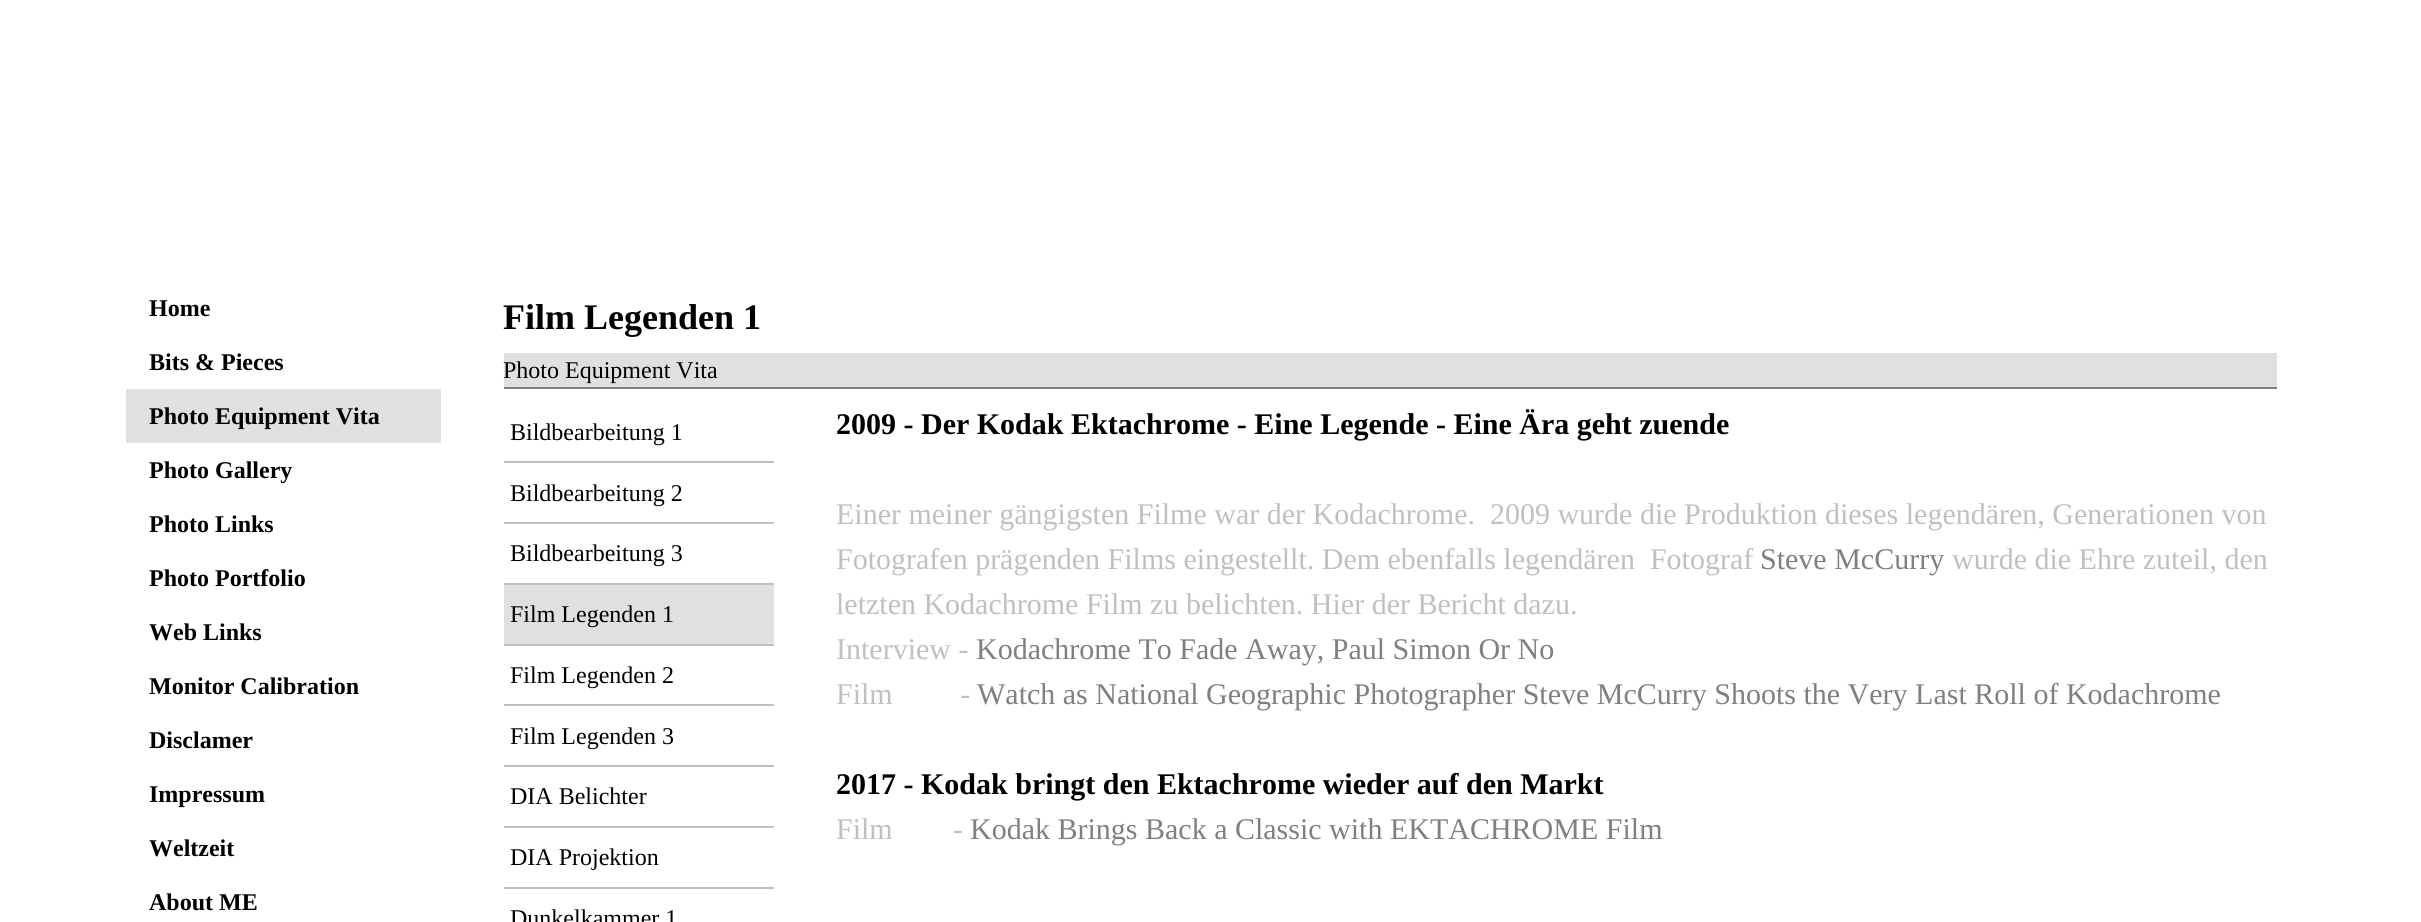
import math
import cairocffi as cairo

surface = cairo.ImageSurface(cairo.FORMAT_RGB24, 2421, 922)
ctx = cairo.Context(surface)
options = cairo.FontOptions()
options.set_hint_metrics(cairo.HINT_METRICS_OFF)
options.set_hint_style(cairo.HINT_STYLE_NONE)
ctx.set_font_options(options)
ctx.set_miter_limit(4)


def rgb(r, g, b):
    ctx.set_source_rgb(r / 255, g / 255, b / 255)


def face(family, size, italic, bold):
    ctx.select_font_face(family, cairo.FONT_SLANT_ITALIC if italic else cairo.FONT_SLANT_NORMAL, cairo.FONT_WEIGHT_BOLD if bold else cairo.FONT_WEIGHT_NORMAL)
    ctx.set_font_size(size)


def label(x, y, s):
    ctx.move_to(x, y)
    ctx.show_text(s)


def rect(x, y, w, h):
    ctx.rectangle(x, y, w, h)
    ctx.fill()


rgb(255, 255, 255)
ctx.paint()
face('Liberation Serif', 24, 0, 1)
rgb(0, 0, 0)
label(149, 316, 'Home')
label(149, 370, 'Bits & Pieces')
rgb(224, 224, 224)
rect(126, 389, 315, 54)
rgb(0, 0, 0)
label(149, 424, 'Photo Equipment Vita')
label(149, 478, 'Photo Gallery')
label(149, 532, 'Photo Links')
label(149, 586, 'Photo Portfolio')
label(149, 640, 'Web Links')
label(149, 694, 'Monitor Calibration')
label(149, 748, 'Disclamer')
label(149, 802, 'Impressum')
label(149, 856, 'Weltzeit')
label(149, 910, 'About ME')
face('Liberation Serif', 36, 0, 1)
label(503, 329, 'Film Legenden 1')
rgb(224, 224, 224)
rect(504, 353, 1773, 34)
rgb(128, 128, 128)
rect(504, 387, 1773, 2)
face('Liberation Serif', 24, 0, 0)
rgb(0, 0, 0)
label(503, 378, 'Photo Equipment Vita')
rgb(192, 192, 192)
rect(504, 461, 270, 2)
rgb(0, 0, 0)
label(510, 440, 'Bildbearbeitung 1')
rgb(192, 192, 192)
rect(504, 522, 270, 2)
rgb(0, 0, 0)
label(510, 501, 'Bildbearbeitung 2')
rgb(192, 192, 192)
rect(504, 583, 270, 2)
rgb(0, 0, 0)
label(510, 561, 'Bildbearbeitung 3')
rgb(224, 224, 224)
rect(504, 585, 270, 59)
rgb(192, 192, 192)
rect(504, 644, 270, 2)
rgb(0, 0, 0)
label(510, 622, 'Film Legenden 1')
rgb(192, 192, 192)
rect(504, 704, 270, 2)
rgb(0, 0, 0)
label(510, 683, 'Film Legenden 2')
rgb(192, 192, 192)
rect(504, 765, 270, 2)
rgb(0, 0, 0)
label(510, 744, 'Film Legenden 3')
rgb(192, 192, 192)
rect(504, 826, 270, 2)
rgb(0, 0, 0)
label(510, 804, 'DIA Belichter')
rgb(192, 192, 192)
rect(504, 887, 270, 2)
rgb(0, 0, 0)
label(510, 865, 'DIA Projektion')
label(510, 926, 'Dunkelkammer 1')
face('Liberation Serif', 30, 0, 1)
label(836, 434, '2009 - Der Kodak Ektachrome - Eine Legende - Eine Ära geht zuende')
face('Liberation Serif', 30, 0, 0)
rgb(192, 192, 192)
label(836, 524, 'Einer meiner gängigsten Filme war der Kodachrome.  2009 wurde die Produktion dieses legendären, Generationen von')
label(836, 569, 'Fotografen prägenden Films eingestellt. Dem ebenfalls legendären  Fotograf')
rgb(128, 128, 128)
label(1760, 569, 'Steve McCurry')
rgb(192, 192, 192)
label(1952, 569, 'wurde die Ehre zuteil, den')
label(836, 614, 'letzten Kodachrome Film zu belichten. Hier der Bericht dazu.')
label(836, 659, 'Interview -')
rgb(128, 128, 128)
label(976, 659, 'Kodachrome To Fade Away, Paul Simon Or No')
rgb(192, 192, 192)
label(836, 704, 'Film         -')
rgb(128, 128, 128)
label(977, 704, 'Watch as National Geographic Photographer Steve McCurry Shoots the Very Last Roll of Kodachrome')
face('Liberation Serif', 30, 0, 1)
rgb(0, 0, 0)
label(836, 794, '2017 - Kodak bringt den Ektachrome wieder auf den Markt')
face('Liberation Serif', 30, 0, 0)
rgb(192, 192, 192)
label(836, 839, 'Film        -')
rgb(128, 128, 128)
label(970, 839, 'Kodak Brings Back a Classic with EKTACHROME Film')
surface.write_to_png('render.png')
